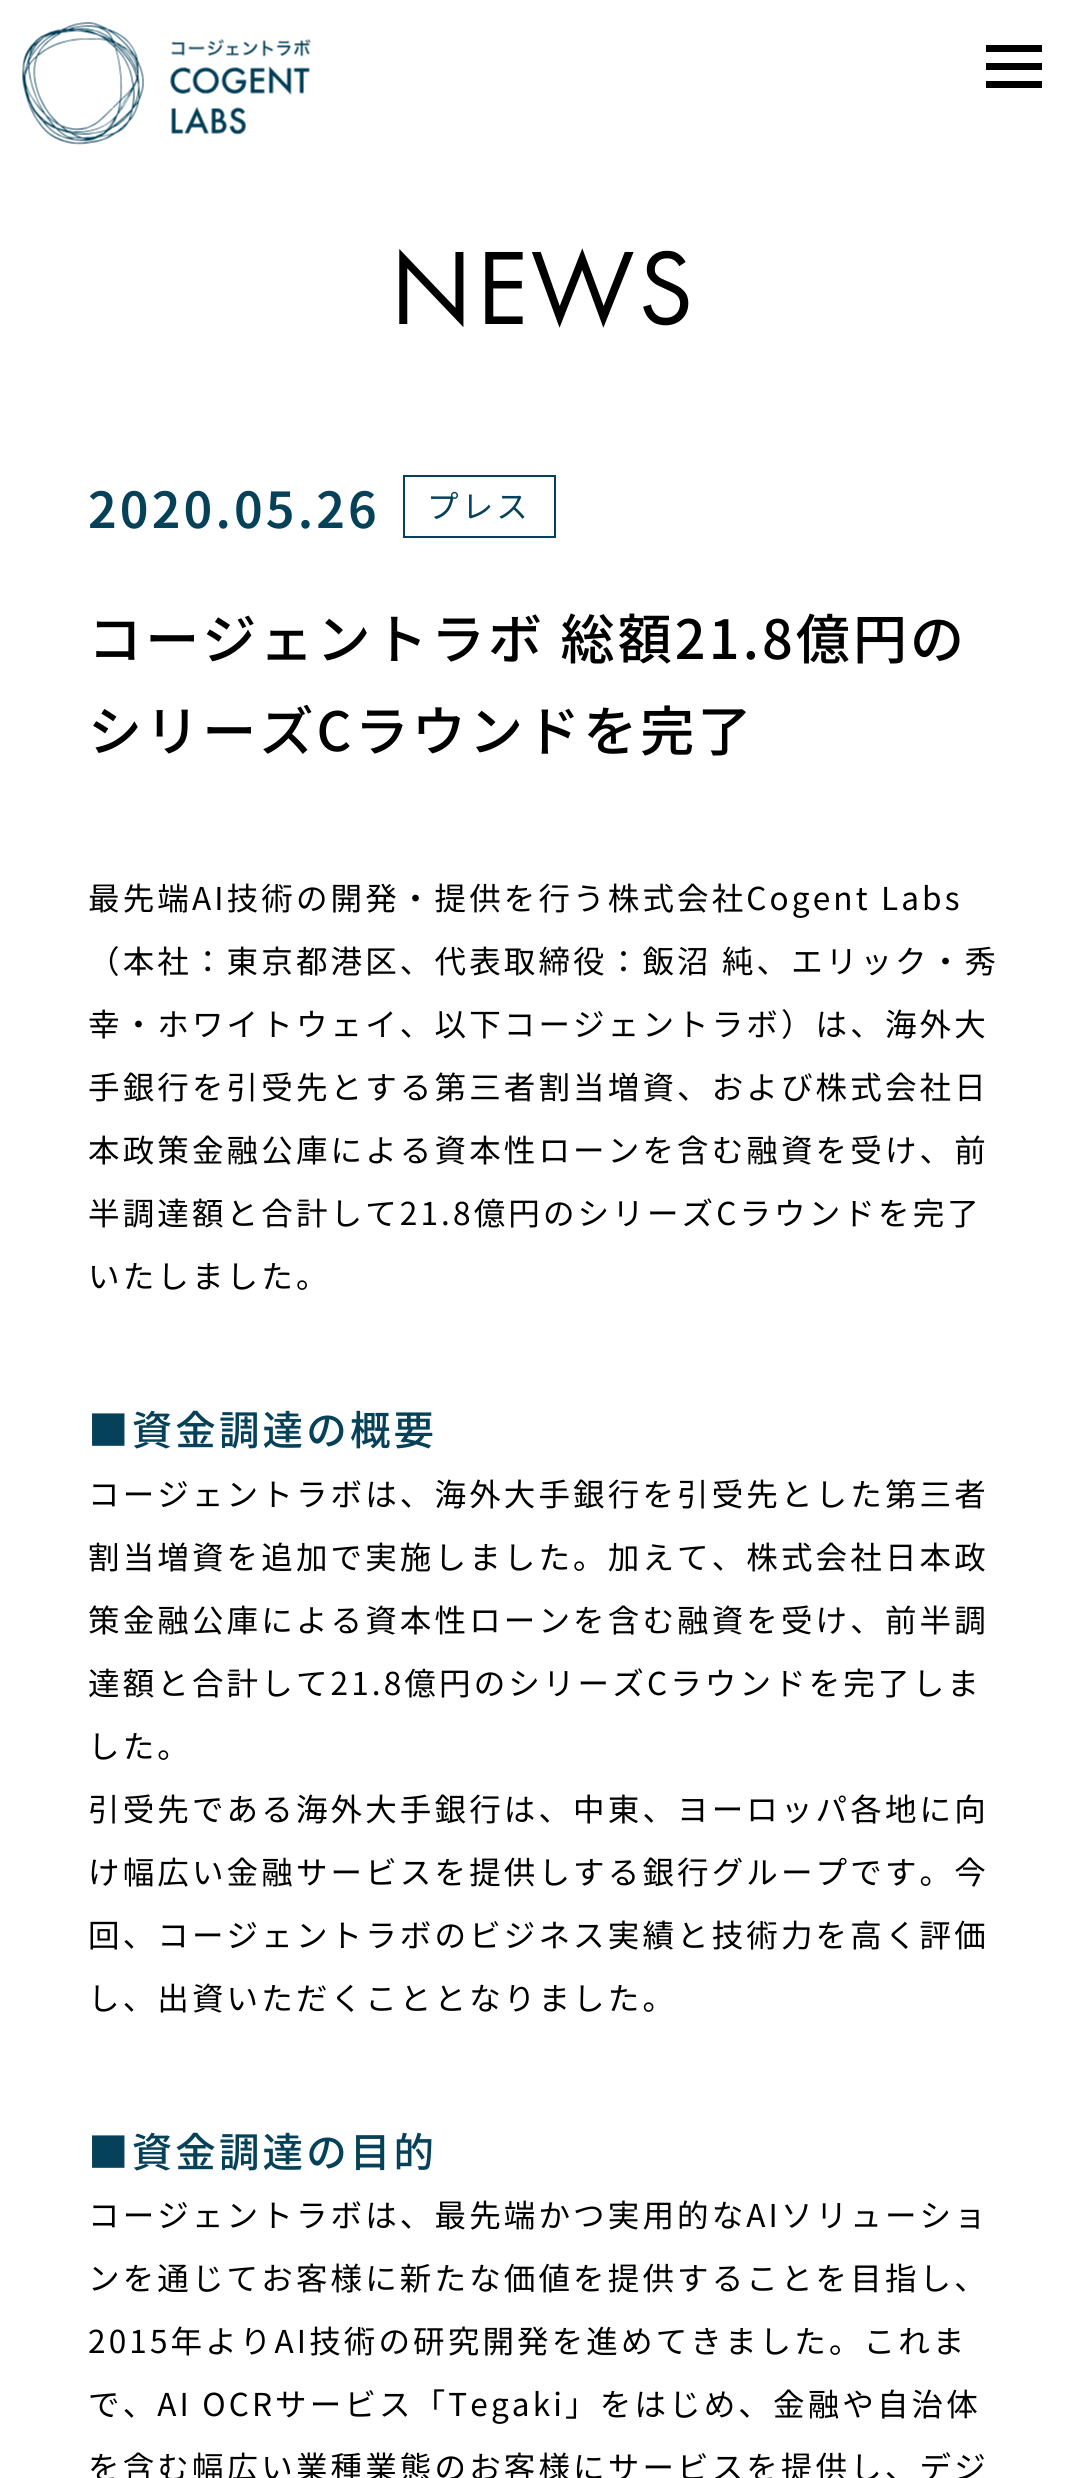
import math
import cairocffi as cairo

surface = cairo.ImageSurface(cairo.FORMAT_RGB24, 1085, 2478)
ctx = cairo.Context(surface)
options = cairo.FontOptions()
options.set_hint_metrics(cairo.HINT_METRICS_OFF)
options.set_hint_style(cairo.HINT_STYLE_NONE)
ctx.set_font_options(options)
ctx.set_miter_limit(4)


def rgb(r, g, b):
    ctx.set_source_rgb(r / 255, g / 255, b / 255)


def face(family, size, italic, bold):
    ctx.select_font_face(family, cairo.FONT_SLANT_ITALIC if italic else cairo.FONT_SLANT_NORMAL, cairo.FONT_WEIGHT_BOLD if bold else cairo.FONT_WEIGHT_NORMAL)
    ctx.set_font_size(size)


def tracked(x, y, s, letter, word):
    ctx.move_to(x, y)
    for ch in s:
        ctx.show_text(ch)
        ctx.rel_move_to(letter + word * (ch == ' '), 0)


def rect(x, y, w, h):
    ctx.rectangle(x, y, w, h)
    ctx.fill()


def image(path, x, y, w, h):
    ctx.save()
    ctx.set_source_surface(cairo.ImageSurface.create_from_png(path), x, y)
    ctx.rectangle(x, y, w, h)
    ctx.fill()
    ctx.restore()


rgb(255, 255, 255)
ctx.paint()
image('image0.png', 22, 22, 289, 123)
rgb(0, 0, 0)
rect(986, 45, 56, 7)
rect(986, 63, 56, 7)
rect(986, 81, 56, 7)
face('Futura PT', 108, 0, 0)
tracked(390, 324, 'NEWS', 3.15, 0)
face('Noto Sans JP SemiBold', 49.5, 0, 0)
rgb(5, 65, 89)
tracked(88, 528, '2020.05.26', 3.15, 0)
ctx.rectangle(404, 476, 151, 61)
ctx.stroke()
face('Noto Sans JP', 31.5, 0, 0)
tracked(427, 518, 'プレス', 3.15, 0)
face('Noto Sans JP Medium', 54, 0, 0)
rgb(0, 0, 0)
tracked(88, 659, 'コージェントラボ 総額21.8億円の', 3.15, 0)
tracked(88, 751, 'シリーズCラウンドを完了', 3.15, 0)
face('Noto Sans JP', 31.5, 0, 0)
tracked(88, 910, '最先端AI技術の開発・提供を行う株式会社Cogent Labs', 3.15, 0)
tracked(88, 973, '（本社：東京都港区、代表取締役：飯沼 純、エリック・秀', 3.15, 0)
tracked(88, 1036, '幸・ホワイトウェイ、以下コージェントラボ）は、海外大', 3.15, 0)
tracked(88, 1099, '手銀行を引受先とする第三者割当増資、および株式会社日', 3.15, 0)
tracked(88, 1162, '本政策金融公庫による資本性ローンを含む融資を受け、前', 3.15, 0)
tracked(88, 1225, '半調達額と合計して21.8億円のシリーズCラウンドを完了', 3.15, 0)
tracked(88, 1288, 'いたしました。', 3.15, 0)
face('Noto Sans JP Medium', 40.5, 0, 0)
rgb(5, 65, 89)
tracked(88, 1445, '■資金調達の概要', 3.15, 0)
face('Noto Sans JP', 31.5, 0, 0)
rgb(0, 0, 0)
tracked(88, 1506, 'コージェントラボは、海外大手銀行を引受先とした第三者', 3.15, 0)
tracked(88, 1569, '割当増資を追加で実施しました。加えて、株式会社日本政', 3.15, 0)
tracked(88, 1632, '策金融公庫による資本性ローンを含む融資を受け、前半調', 3.15, 0)
tracked(88, 1695, '達額と合計して21.8億円のシリーズCラウンドを完了しま', 3.15, 0)
tracked(88, 1758, 'した。', 3.15, 0)
tracked(88, 1821, '引受先である海外大手銀行は、中東、ヨーロッパ各地に向', 3.15, 0)
tracked(88, 1884, 'け幅広い金融サービスを提供しする銀行グループです。今', 3.15, 0)
tracked(88, 1947, '回、コージェントラボのビジネス実績と技術力を高く評価', 3.15, 0)
tracked(88, 2010, 'し、出資いただくこととなりました。', 3.15, 0)
face('Noto Sans JP Medium', 40.5, 0, 0)
rgb(5, 65, 89)
tracked(88, 2167, '■資金調達の目的', 3.15, 0)
face('Noto Sans JP', 31.5, 0, 0)
rgb(0, 0, 0)
tracked(88, 2227, 'コージェントラボは、最先端かつ実用的なAIソリューショ', 3.15, 0)
tracked(88, 2290, 'ンを通じてお客様に新たな価値を提供することを目指し、', 3.15, 0)
tracked(88, 2353, '2015年よりAI技術の研究開発を進めてきました。これま', 3.15, 0)
tracked(88, 2416, 'で、AI OCRサービス「Tegaki」をはじめ、金融や自治体', 3.15, 0)
tracked(88, 2479, 'を含む幅広い業種業態のお客様にサービスを提供し、デジ', 3.15, 0)
surface.write_to_png('render.png')
